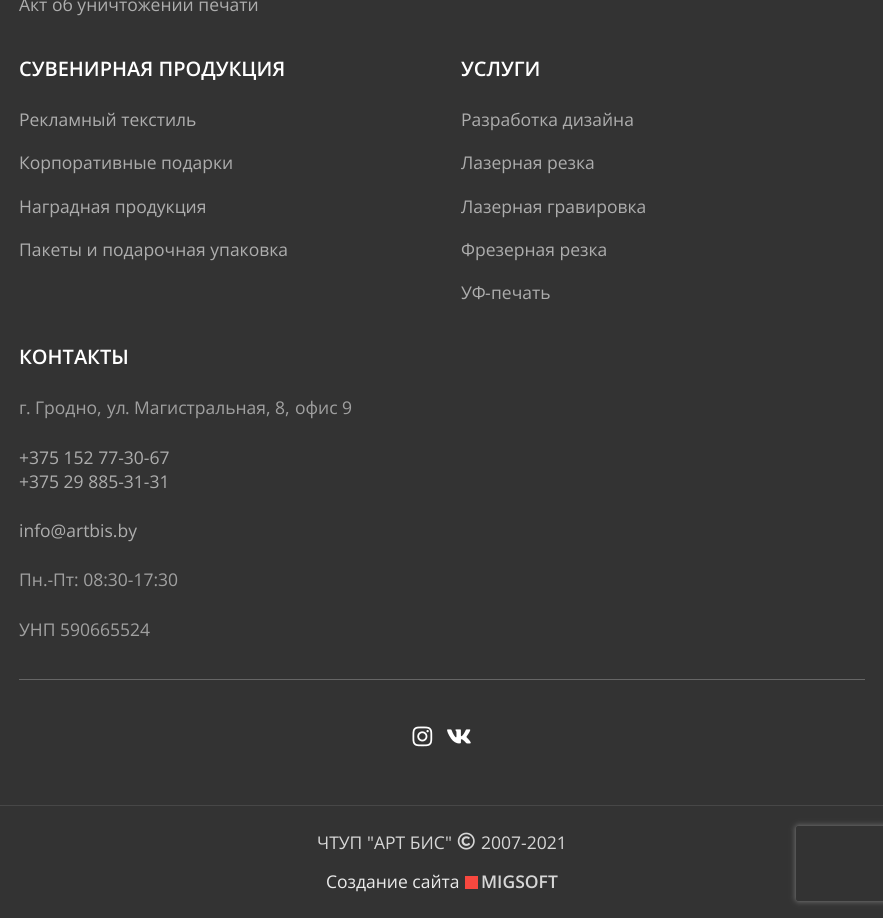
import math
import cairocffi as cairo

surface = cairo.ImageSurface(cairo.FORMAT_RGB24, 883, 918)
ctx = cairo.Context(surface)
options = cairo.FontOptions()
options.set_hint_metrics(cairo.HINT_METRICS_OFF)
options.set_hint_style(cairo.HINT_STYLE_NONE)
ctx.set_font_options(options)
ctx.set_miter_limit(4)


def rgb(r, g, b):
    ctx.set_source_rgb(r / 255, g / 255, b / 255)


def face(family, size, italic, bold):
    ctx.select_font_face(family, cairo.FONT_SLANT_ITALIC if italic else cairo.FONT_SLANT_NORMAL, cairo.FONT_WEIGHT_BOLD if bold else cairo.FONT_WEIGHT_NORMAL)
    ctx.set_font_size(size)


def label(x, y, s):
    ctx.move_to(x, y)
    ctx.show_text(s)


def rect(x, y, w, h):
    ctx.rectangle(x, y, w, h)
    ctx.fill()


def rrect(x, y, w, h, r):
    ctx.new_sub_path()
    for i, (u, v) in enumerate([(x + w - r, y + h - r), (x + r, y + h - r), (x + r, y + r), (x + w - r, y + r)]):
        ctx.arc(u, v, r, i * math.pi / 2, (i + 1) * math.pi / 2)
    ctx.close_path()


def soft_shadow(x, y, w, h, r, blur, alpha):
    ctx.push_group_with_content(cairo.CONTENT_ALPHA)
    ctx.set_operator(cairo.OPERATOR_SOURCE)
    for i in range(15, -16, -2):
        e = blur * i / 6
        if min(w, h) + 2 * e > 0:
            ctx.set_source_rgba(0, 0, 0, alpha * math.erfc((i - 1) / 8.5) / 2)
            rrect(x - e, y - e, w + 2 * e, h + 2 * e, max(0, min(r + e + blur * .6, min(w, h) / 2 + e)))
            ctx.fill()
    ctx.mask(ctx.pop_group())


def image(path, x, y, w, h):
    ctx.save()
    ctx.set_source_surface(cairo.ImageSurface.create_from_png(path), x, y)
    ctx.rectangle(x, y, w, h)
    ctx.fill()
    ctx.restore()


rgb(51, 51, 51)
ctx.paint()
face('Open Sans', 17.5, 0, 0)
rgb(173, 173, 173)
label(19, 11, 'Акт об уничтожении печати')
face('Open Sans SemiBold', 20, 0, 0)
rgb(255, 255, 255)
label(19, 76, 'СУВЕНИРНАЯ ПРОДУКЦИЯ')
face('Open Sans', 17.5, 0, 0)
rgb(173, 173, 173)
label(19, 126, 'Рекламный текстиль')
label(19, 169, 'Корпоративные подарки')
label(19, 213, 'Наградная продукция')
label(19, 256, 'Пакеты и подарочная упаковка')
face('Open Sans SemiBold', 20, 0, 0)
rgb(255, 255, 255)
label(461, 76, 'УСЛУГИ')
face('Open Sans', 17.5, 0, 0)
rgb(173, 173, 173)
label(461, 126, 'Разработка дизайна')
label(461, 169, 'Лазерная резка')
label(461, 213, 'Лазерная гравировка')
label(461, 256, 'Фрезерная резка')
label(461, 299, 'УФ')
face('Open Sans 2', 17.5, 0, 0)
label(485, 299, '-')
face('Open Sans', 17.5, 0, 0)
label(491, 299, 'печать')
rgb(102, 102, 102)
rect(19, 679, 846, 1)
face('Open Sans SemiBold', 20, 0, 0)
rgb(255, 255, 255)
label(19, 364, 'КОНТАКТЫ')
face('Open Sans', 17.5, 0, 0)
rgb(160, 160, 160)
label(19, 414, 'г')
face('Open Sans 2', 17.5, 0, 0)
label(26, 414, '.')
face('Open Sans', 17.5, 0, 0)
label(35, 414, 'Гродно')
face('Open Sans 2', 17.5, 0, 0)
label(97, 414, ',')
face('Open Sans', 17.5, 0, 0)
label(107, 414, 'ул')
face('Open Sans 2', 17.5, 0, 0)
label(125, 414, '.')
face('Open Sans', 17.5, 0, 0)
label(134, 414, 'Магистральная')
face('Open Sans 2', 17.5, 0, 0)
label(266, 414, ', 8,')
face('Open Sans', 17.5, 0, 0)
label(295, 414, 'офис')
face('Open Sans 2', 17.5, 0, 0)
label(342, 414, '9')
rgb(173, 173, 173)
label(19, 464, '+375 152 77-30-67')
label(19, 488, '+375 29 885-31-31')
label(19, 537, 'info@artbis.by')
face('Open Sans', 17.5, 0, 0)
rgb(160, 160, 160)
label(19, 586, 'Пн')
face('Open Sans 2', 17.5, 0, 0)
label(43, 586, '.-')
face('Open Sans', 17.5, 0, 0)
label(53, 586, 'Пт')
face('Open Sans 2', 17.5, 0, 0)
label(74, 586, ': 08:30-17:30')
face('Open Sans', 17.5, 0, 0)
label(19, 636, 'УНП')
face('Open Sans 2', 17.5, 0, 0)
label(60, 636, '590665524')
image('image0.png', 412, 726, 21, 21)
image('image1.png', 447, 729, 24, 15)
rgb(71, 71, 71)
rect(0, 805, 883, 1)
face('Open Sans', 17.5, 0, 0)
rgb(214, 214, 214)
label(317, 849, 'ЧТУП')
face('Open Sans 2', 17.5, 0, 0)
label(367, 849, '"')
face('Open Sans', 17.5, 0, 0)
label(374, 849, 'АРТ БИС')
face('Open Sans 2', 17.5, 0, 0)
label(445, 849, '"')
image('image2.png', 457, 832, 18, 18)
label(481, 849, '2007-2021')
face('Open Sans', 17.5, 0, 0)
rgb(235, 235, 235)
label(326, 888, 'Создание сайта')
rgb(248, 72, 63)
rect(465, 876, 13, 13)
face('Open Sans SemiBold', 17.5, 0, 0)
rgb(214, 214, 214)
label(481, 888, 'MIGSOFT')
ctx.save()
ctx.set_fill_rule(cairo.FILL_RULE_EVEN_ODD)
ctx.new_path()
ctx.move_to(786, 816)
ctx.line_to(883, 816)
ctx.line_to(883, 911)
ctx.line_to(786, 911)
ctx.close_path()
ctx.move_to(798.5, 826)
ctx.line_to(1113.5, 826)
ctx.curve_to(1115, 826, 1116, 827, 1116, 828.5)
ctx.line_to(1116, 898.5)
ctx.curve_to(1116, 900, 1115, 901, 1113.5, 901)
ctx.line_to(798.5, 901)
ctx.curve_to(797, 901, 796, 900, 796, 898.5)
ctx.line_to(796, 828.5)
ctx.curve_to(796, 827, 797, 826, 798.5, 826)
ctx.close_path()
ctx.clip()
rgb(128, 128, 128)
soft_shadow(796, 826, 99, 75, 2.5, 3, 1)
ctx.restore()
surface.write_to_png('render.png')
